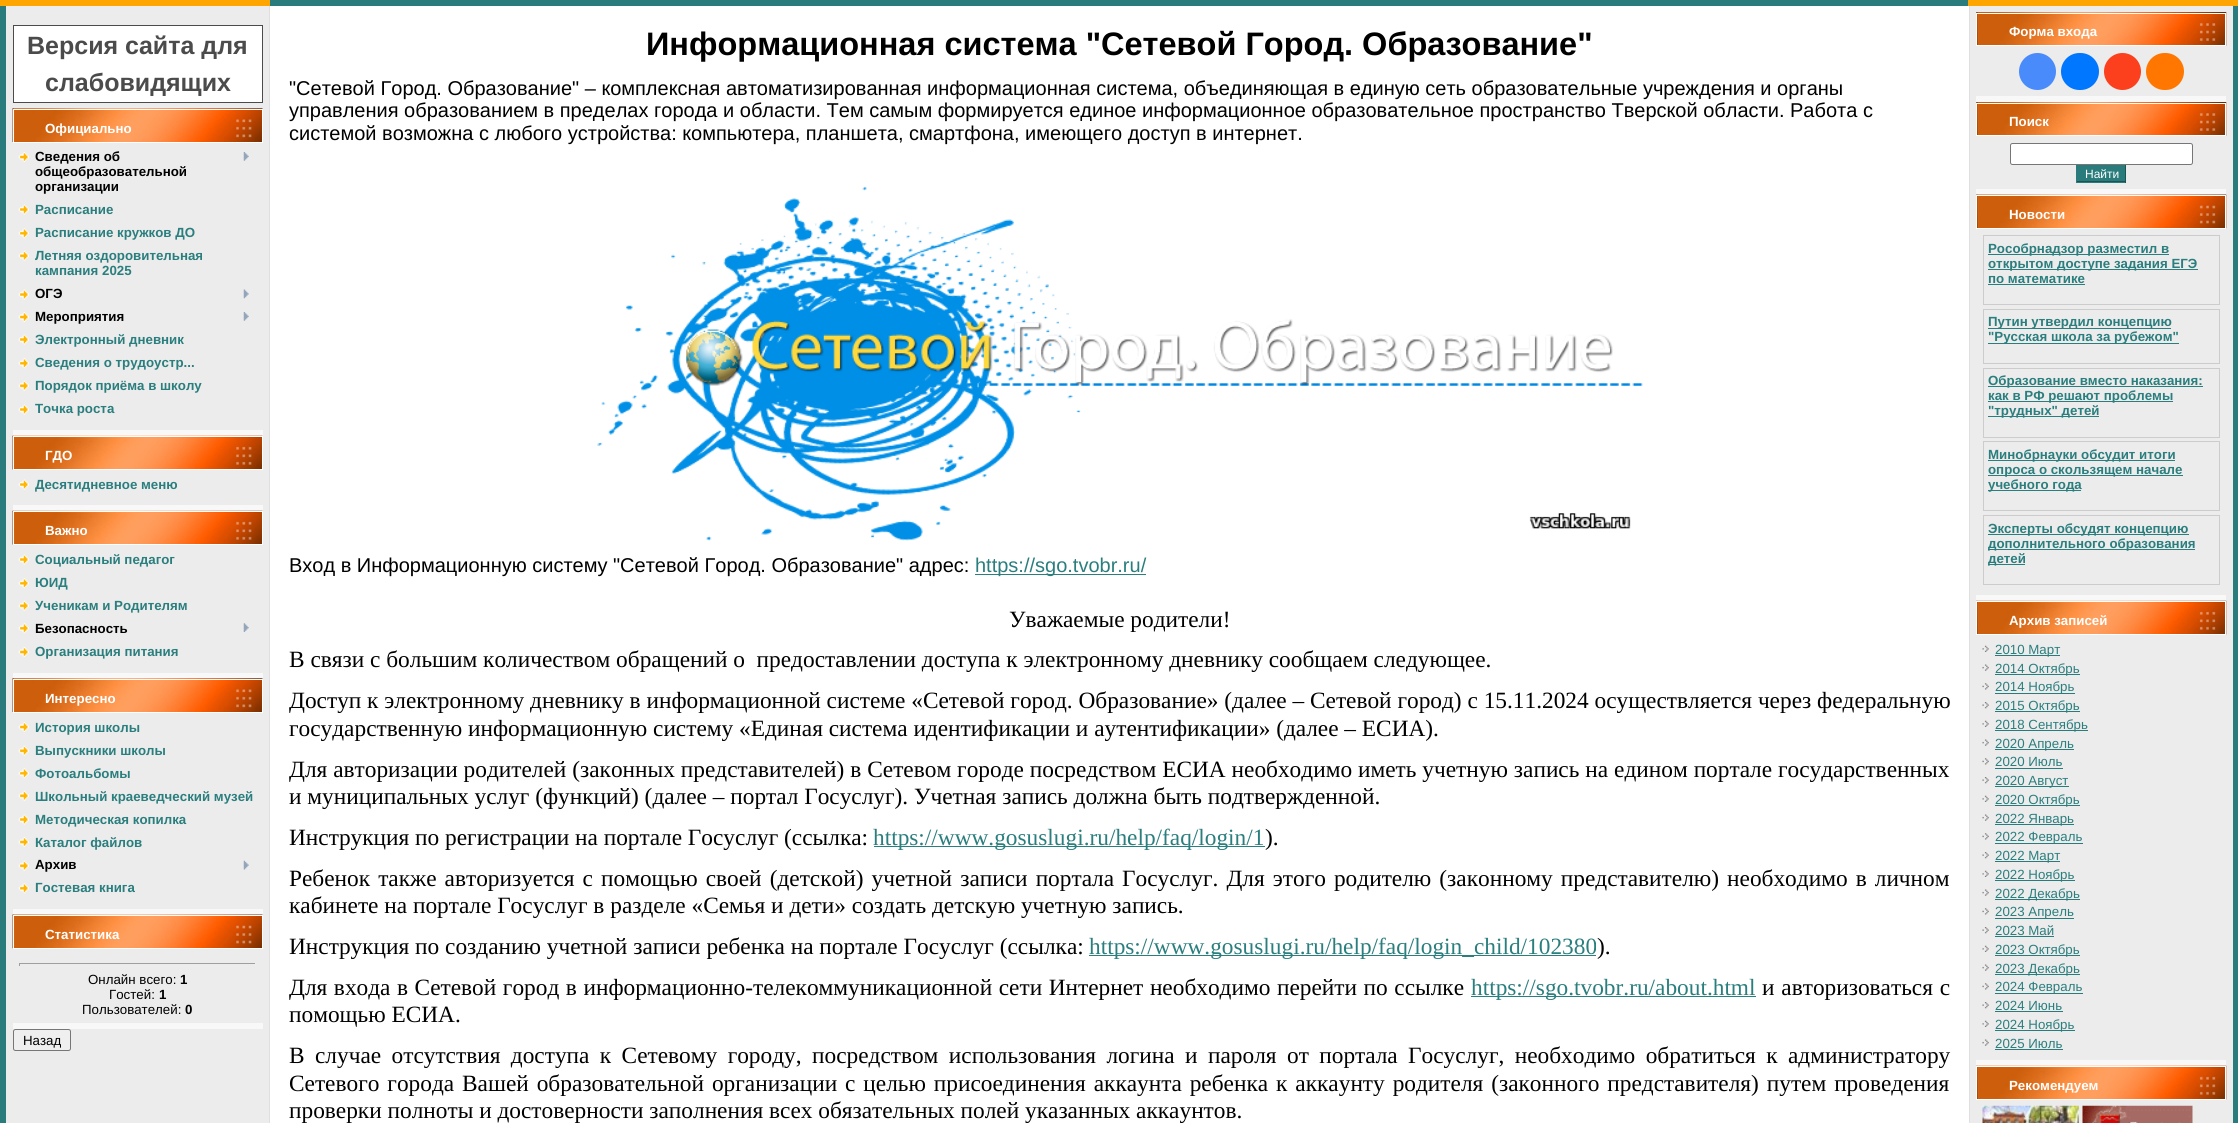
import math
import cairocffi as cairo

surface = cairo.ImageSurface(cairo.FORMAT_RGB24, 2238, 1123)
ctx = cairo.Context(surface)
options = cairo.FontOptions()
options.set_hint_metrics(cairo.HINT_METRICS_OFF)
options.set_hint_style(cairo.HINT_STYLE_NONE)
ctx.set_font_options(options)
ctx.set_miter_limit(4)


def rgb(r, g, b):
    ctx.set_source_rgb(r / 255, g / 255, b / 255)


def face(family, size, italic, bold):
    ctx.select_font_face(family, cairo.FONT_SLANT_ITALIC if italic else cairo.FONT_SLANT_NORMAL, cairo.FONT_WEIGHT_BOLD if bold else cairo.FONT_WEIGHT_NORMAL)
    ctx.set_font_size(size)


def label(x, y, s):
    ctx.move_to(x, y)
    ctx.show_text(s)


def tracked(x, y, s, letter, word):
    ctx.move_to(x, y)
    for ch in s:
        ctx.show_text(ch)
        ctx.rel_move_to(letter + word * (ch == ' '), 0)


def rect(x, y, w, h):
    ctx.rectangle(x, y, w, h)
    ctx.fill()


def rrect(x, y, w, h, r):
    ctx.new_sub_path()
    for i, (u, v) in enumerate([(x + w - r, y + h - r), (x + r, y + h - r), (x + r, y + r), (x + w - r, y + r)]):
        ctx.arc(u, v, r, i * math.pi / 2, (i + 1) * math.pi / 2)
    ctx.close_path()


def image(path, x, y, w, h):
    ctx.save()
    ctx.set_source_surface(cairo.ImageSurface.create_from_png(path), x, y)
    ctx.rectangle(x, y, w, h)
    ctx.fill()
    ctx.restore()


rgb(255, 255, 255)
ctx.paint()
rgb(255, 165, 0)
rect(0, 0, 270, 6)
rgb(42, 124, 124)
rect(270, 0, 1699, 6)
rgb(255, 165, 0)
rect(1968, 0, 270, 6)
rgb(236, 236, 236)
rect(6, 6, 263, 1117)
rgb(224, 224, 224)
rect(269, 6, 1, 1117)
rgb(42, 124, 124)
rect(0, 6, 6, 1117)
rgb(255, 255, 255)
ctx.rectangle(13.5, 25.5, 249, 77)
ctx.fill_preserve()
rgb(75, 75, 75)
ctx.set_line_width(1)
ctx.stroke()
face('Liberation Sans', 25, 0, 1)
label(27, 54, 'Версия сайта для')
label(45, 91, 'слабовидящих')
rgb(248, 248, 248)
rect(13, 430, 250, 6)
image('image0.png', 12, 108, 251, 34)
ctx.rectangle(13.5, 109.5, 249, 33)
rgb(255, 255, 255)
ctx.stroke()
face('Liberation Sans', 13.3, 0, 1)
label(45, 133, 'Официально')
image('image1.png', 18, 152, 11, 10)
rgb(0, 0, 0)
label(35, 161, 'Сведения об')
image('image2.png', 243, 152, 6, 9)
label(35, 176, 'общеобразовательной')
label(35, 191, 'организации')
image('image3.png', 18, 204, 11, 11)
rgb(43, 126, 126)
label(35, 214, 'Расписание')
image('image4.png', 18, 228, 11, 11)
label(35, 237, 'Расписание кружков ДО')
image('image5.png', 18, 250, 11, 11)
label(35, 260, 'Летняя оздоровительная')
label(35, 275, 'кампания 2025')
image('image3.png', 18, 289, 11, 11)
rgb(0, 0, 0)
label(35, 298, 'ОГЭ')
image('image6.png', 243, 289, 6, 10)
image('image1.png', 18, 312, 11, 10)
label(35, 321, 'Мероприятия')
image('image2.png', 243, 312, 6, 9)
image('image3.png', 18, 334, 11, 11)
rgb(43, 126, 126)
label(35, 344, 'Электронный дневник')
image('image4.png', 18, 358, 11, 11)
label(35, 367, 'Сведения о трудоустр...')
image('image5.png', 18, 380, 11, 11)
label(35, 390, 'Порядок приёма в школу')
image('image3.png', 18, 404, 11, 11)
label(35, 413, 'Точка роста')
rgb(248, 248, 248)
rect(13, 505, 250, 6)
image('image7.png', 12, 435, 251, 35)
ctx.rectangle(13.5, 436.5, 249, 33)
rgb(255, 255, 255)
ctx.stroke()
label(45, 460, 'ГДО')
image('image3.png', 18, 479, 11, 11)
rgb(43, 126, 126)
label(35, 489, 'Десятидневное меню')
rgb(248, 248, 248)
rect(13, 673, 250, 6)
image('image7.png', 12, 510, 251, 35)
ctx.rectangle(13.5, 511.5, 249, 33)
rgb(255, 255, 255)
ctx.stroke()
label(45, 535, 'Важно')
image('image3.png', 18, 554, 11, 11)
rgb(43, 126, 126)
label(35, 564, 'Социальный педагог')
image('image4.png', 18, 578, 11, 11)
label(35, 587, 'ЮИД')
image('image5.png', 18, 600, 11, 11)
label(35, 610, 'Ученикам и Родителям')
image('image4.png', 18, 623, 11, 11)
rgb(0, 0, 0)
label(35, 633, 'Безопасность')
image('image8.png', 243, 623, 6, 9)
image('image1.png', 18, 647, 11, 10)
rgb(43, 126, 126)
label(35, 656, 'Организация питания')
rgb(248, 248, 248)
rect(13, 909, 250, 6)
image('image9.png', 12, 678, 251, 34)
ctx.rectangle(13.5, 679.5, 249, 33)
rgb(255, 255, 255)
ctx.stroke()
label(45, 703, 'Интересно')
image('image1.png', 18, 722, 11, 10)
rgb(43, 126, 126)
label(35, 732, 'История школы')
image('image5.png', 18, 745, 11, 11)
label(35, 755, 'Выпускники школы')
image('image4.png', 18, 768, 11, 11)
label(35, 778, 'Фотоальбомы')
image('image5.png', 18, 790, 11, 11)
label(35, 801, 'Школьный краеведческий музей')
image('image3.png', 18, 814, 11, 11)
label(35, 824, 'Методическая копилка')
image('image1.png', 18, 837, 11, 10)
label(35, 847, 'Каталог файлов')
image('image5.png', 18, 860, 11, 11)
rgb(0, 0, 0)
label(35, 869, 'Архив')
image('image10.png', 243, 860, 6, 10)
image('image4.png', 18, 883, 11, 11)
rgb(43, 126, 126)
label(35, 892, 'Гостевая книга')
rgb(248, 248, 248)
rect(13, 1023, 250, 6)
image('image11.png', 12, 914, 251, 35)
ctx.rectangle(13.5, 915.5, 249, 33)
rgb(255, 255, 255)
ctx.stroke()
label(45, 939, 'Статистика')
rgb(159, 159, 159)
rect(19, 963, 237, 1)
rgb(238, 238, 238)
rect(255, 963, 1, 3)
rgb(159, 159, 159)
rect(19, 963, 1, 3)
face('Liberation Sans', 13.3, 0, 0)
rgb(0, 0, 0)
label(88, 984, 'Онлайн всего:')
face('Liberation Sans', 13.3, 0, 1)
label(180, 984, '1')
face('Liberation Sans', 13.3, 0, 0)
label(109, 999, 'Гостей:')
face('Liberation Sans', 13.3, 0, 1)
label(159, 999, '1')
face('Liberation Sans', 13.3, 0, 0)
label(82, 1014, 'Пользователей:')
face('Liberation Sans', 13.3, 0, 1)
label(185, 1014, '0')
rgb(239, 239, 239)
rrect(13.5, 1029.5, 57, 21, 2)
ctx.fill_preserve()
rgb(118, 118, 118)
ctx.stroke()
face('Liberation Sans', 13.3, 0, 0)
rgb(0, 0, 0)
label(23, 1045, 'Назад')
face('Liberation Sans', 32.5, 0, 1)
label(646, 55, 'Информационная система "Сетевой Город. Образование"')
face('Liberation Sans', 20, 0, 0)
label(289, 95, '"Сетевой Город. Образование" – комплексная автоматизированная информационная система, объединяющая в единую сеть образовательные учреждения и органы')
label(289, 117, 'управления образованием в пределах города и области. Тем самым формируется единое информационное образовательное пространство Тверской области. Работа с')
label(289, 140, 'системой возможна с любого устройства: компьютера, планшета, смартфона, имеющего доступ в интернет.')
image('image12.png', 597, 186, 1046, 355)
label(289, 572, 'Вход в Информационную систему "Сетевой Город. Образование" адрес:')
rgb(43, 126, 126)
rect(975, 574, 171, 1)
label(975, 572, 'https://sgo.tvobr.ru/')
face('Liberation Serif', 23.33, 0, 0)
rgb(0, 0, 0)
label(1009, 627, 'Уважаемые родители!')
label(289, 667, 'В связи с большим количеством обращений о  предоставлении доступа к электронному дневнику сообщаем следующее.')
label(289, 708, 'Доступ к электронному дневнику в информационной системе «Сетевой город. Образование» (далее – Сетевой город) с 15.11.2024 осуществляется через федеральную')
label(289, 736, 'государственную информационную систему «Единая система идентификации и аутентификации» (далее – ЕСИА).')
tracked(289, 777, 'Для авторизации родителей (законных представителей) в Сетевом городе посредством ЕСИА необходимо иметь учетную запись на едином портале государственных', 0, 0.1)
label(289, 804, 'и муниципальных услуг (функций) (далее – портал Госуслуг). Учетная запись должна быть подтвержденной.')
label(289, 845, 'Инструкция по регистрации на портале Госуслуг (ссылка:')
rgb(43, 126, 126)
rect(874, 846, 391, 1)
label(873, 845, 'https://www.gosuslugi.ru/help/faq/login/1')
rgb(0, 0, 0)
label(1265, 845, ').')
tracked(289, 886, 'Ребенок также авторизуется с помощью своей (детской) учетной записи портала Госуслуг. Для этого родителю (законному представителю) необходимо в личном', 0, 2.25)
label(289, 913, 'кабинете на портале Госуслуг в разделе «Семья и дети» создать детскую учетную запись.')
label(289, 954, 'Инструкция по созданию учетной записи ребенка на портале Госуслуг (ссылка:')
rgb(43, 126, 126)
rect(1089, 955, 507, 1)
label(1089, 954, 'https://www.gosuslugi.ru/help/faq/login_child/102380')
rgb(0, 0, 0)
label(1597, 954, ').')
tracked(289, 995, 'Для входа в Сетевой город в информационно-телекоммуникационной сети Интернет необходимо перейти по ссылке', 0, 0.75)
rgb(43, 126, 126)
rect(1471, 996, 285, 1)
label(1471, 995, 'https://sgo.tvobr.ru/about.html')
rgb(0, 0, 0)
tracked(1762, 995, 'и авторизоваться с', 0, 1)
label(289, 1022, 'помощью ЕСИА.')
tracked(289, 1063, 'В случае отсутствия доступа к Сетевому городу, посредством использования логина и пароля от портала Госуслуг, необходимо обратиться к администратору', 0, 4.6)
tracked(289, 1091, 'Сетевого города Вашей образовательной организации с целью присоединения аккаунта ребенка к аккаунту родителя (законного представителя) путем проведения', 0, 2.1)
label(289, 1118, 'проверки полноты и достоверности заполнения всех обязательных полей указанных аккаунтов.')
rgb(236, 236, 236)
rect(1970, 6, 263, 1117)
rgb(42, 124, 124)
rect(2233, 6, 5, 1117)
rgb(224, 224, 224)
rect(1969, 6, 1, 1117)
rgb(248, 248, 248)
rect(1976, 96, 250, 7)
image('image13.png', 1976, 12, 251, 34)
ctx.rectangle(1976.5, 13.5, 249, 32)
rgb(255, 255, 255)
ctx.stroke()
face('Liberation Sans', 13.3, 0, 1)
label(2009, 36, 'Форма входа')
rgb(73, 139, 250)
ctx.new_path()
ctx.arc(2037.5, 71.5, 18.5, 0, 2 * math.pi)
ctx.fill()
rgb(0, 119, 255)
rrect(2061, 53, 38, 37, 18.5)
ctx.fill()
rgb(252, 63, 29)
ctx.arc(2122.5, 71.5, 18.5, 0, 2 * math.pi)
ctx.fill()
rgb(255, 119, 0)
rrect(2146, 53, 38, 37, 18.5)
ctx.fill()
rgb(248, 248, 248)
rect(1976, 189, 250, 6)
image('image14.png', 1976, 102, 251, 34)
ctx.rectangle(1976.5, 103.5, 249, 32)
rgb(255, 255, 255)
ctx.stroke()
label(2009, 126, 'Поиск')
rrect(2010.5, 143.5, 182, 21, 2)
ctx.fill_preserve()
rgb(118, 118, 118)
ctx.stroke()
rgb(42, 124, 124)
rect(2077, 165, 48, 18)
rgb(28, 83, 83)
rect(2125, 165, 1, 18)
rect(2076, 181, 50, 1)
rgb(42, 124, 124)
rect(2076, 165, 1, 18)
face('Liberation Sans', 12, 0, 0)
rgb(255, 255, 255)
label(2085, 178, 'Найти')
rgb(248, 248, 248)
rect(1976, 595, 250, 6)
image('image15.png', 1976, 194, 251, 35)
ctx.rectangle(1976.5, 195.5, 249, 33)
rgb(255, 255, 255)
ctx.stroke()
face('Liberation Sans', 13.3, 0, 1)
label(2009, 219, 'Новости')
ctx.rectangle(1983.5, 235.5, 236, 69)
rgb(204, 204, 204)
ctx.stroke()
rgb(43, 126, 126)
rect(1988, 254, 181, 1)
label(1988, 253, 'Рособрнадзор разместил в')
rect(1988, 269, 210, 1)
label(1988, 268, 'открытом доступе задания ЕГЭ')
label(1988, 283, 'по математике')
rect(1988, 284, 97, 1)
ctx.rectangle(1983.5, 309.5, 236, 54)
rgb(204, 204, 204)
ctx.stroke()
rgb(43, 126, 126)
rect(1988, 328, 183, 1)
label(1988, 326, 'Путин утвердил концепцию')
rect(1988, 343, 191, 1)
label(1988, 341, '"Русская школа за рубежом"')
ctx.rectangle(1983.5, 368.5, 236, 69)
rgb(204, 204, 204)
ctx.stroke()
rgb(43, 126, 126)
rect(1988, 386, 215, 1)
label(1988, 385, 'Образование вместо наказания:')
rect(1988, 401, 185, 1)
label(1988, 400, 'как в РФ решают проблемы')
rect(1988, 416, 111, 1)
label(1988, 415, '"трудных" детей')
ctx.rectangle(1983.5, 441.5, 236, 69)
rgb(204, 204, 204)
ctx.stroke()
rgb(43, 126, 126)
rect(1988, 460, 187, 1)
label(1988, 459, 'Минобрнауки обсудит итоги')
rect(1988, 475, 195, 1)
label(1988, 474, 'опроса о скользящем начале')
rect(1988, 490, 93, 1)
label(1988, 489, 'учебного года')
ctx.rectangle(1983.5, 515.5, 236, 69)
rgb(204, 204, 204)
ctx.stroke()
rgb(43, 126, 126)
rect(1988, 534, 201, 1)
label(1988, 533, 'Эксперты обсудят концепцию')
rect(1988, 549, 207, 1)
label(1988, 548, 'дополнительного образования')
rect(1988, 564, 37, 1)
label(1988, 563, 'детей')
rgb(248, 248, 248)
rect(1976, 1060, 250, 6)
image('image16.png', 1976, 600, 251, 35)
ctx.rectangle(1976.5, 601.5, 249, 33)
rgb(255, 255, 255)
ctx.stroke()
label(2009, 625, 'Архив записей')
image('image17.png', 1982, 645, 7, 7)
rgb(42, 124, 124)
rect(1995, 655, 65, 1)
face('Liberation Sans', 13.3, 0, 0)
rgb(43, 126, 126)
label(1995, 654, '2010 Март')
image('image18.png', 1982, 664, 7, 7)
rgb(42, 124, 124)
rect(1995, 674, 85, 1)
rgb(43, 126, 126)
label(1995, 673, '2014 Октябрь')
image('image19.png', 1982, 683, 7, 7)
rgb(42, 124, 124)
rect(1995, 693, 80, 1)
rgb(43, 126, 126)
label(1995, 691, '2014 Ноябрь')
image('image20.png', 1982, 702, 7, 7)
rgb(42, 124, 124)
rect(1995, 711, 85, 1)
rgb(43, 126, 126)
label(1995, 710, '2015 Октябрь')
image('image17.png', 1982, 720, 7, 7)
rgb(42, 124, 124)
rect(1995, 730, 93, 1)
rgb(43, 126, 126)
label(1995, 729, '2018 Сентябрь')
image('image18.png', 1982, 739, 7, 7)
rgb(42, 124, 124)
rect(1995, 749, 79, 1)
rgb(43, 126, 126)
label(1995, 748, '2020 Апрель')
image('image19.png', 1982, 758, 7, 7)
label(1995, 766, '2020 Июль')
rgb(42, 124, 124)
rect(1995, 768, 68, 1)
image('image20.png', 1982, 777, 7, 7)
rect(1995, 786, 74, 1)
rgb(43, 126, 126)
label(1995, 785, '2020 Август')
image('image17.png', 1982, 795, 7, 7)
rgb(42, 124, 124)
rect(1995, 805, 85, 1)
rgb(43, 126, 126)
label(1995, 804, '2020 Октябрь')
image('image18.png', 1982, 814, 7, 7)
rgb(42, 124, 124)
rect(1995, 824, 79, 1)
rgb(43, 126, 126)
label(1995, 823, '2022 Январь')
image('image19.png', 1982, 833, 7, 7)
rgb(42, 124, 124)
rect(1995, 843, 88, 1)
rgb(43, 126, 126)
label(1995, 841, '2022 Февраль')
image('image20.png', 1982, 852, 7, 7)
rgb(42, 124, 124)
rect(1995, 861, 65, 1)
rgb(43, 126, 126)
label(1995, 860, '2022 Март')
image('image17.png', 1982, 870, 7, 7)
rgb(42, 124, 124)
rect(1995, 880, 80, 1)
rgb(43, 126, 126)
label(1995, 879, '2022 Ноябрь')
image('image18.png', 1982, 889, 7, 7)
rgb(42, 124, 124)
rect(1995, 899, 85, 1)
rgb(43, 126, 126)
label(1995, 898, '2022 Декабрь')
image('image19.png', 1982, 908, 7, 7)
rgb(42, 124, 124)
rect(1995, 918, 79, 1)
rgb(43, 126, 126)
label(1995, 916, '2023 Апрель')
image('image20.png', 1982, 927, 7, 7)
label(1995, 935, '2023 Май')
rgb(42, 124, 124)
rect(1995, 936, 59, 1)
image('image17.png', 1982, 945, 7, 7)
rect(1995, 955, 85, 1)
rgb(43, 126, 126)
label(1995, 954, '2023 Октябрь')
image('image18.png', 1982, 964, 7, 7)
rgb(42, 124, 124)
rect(1995, 974, 85, 1)
rgb(43, 126, 126)
label(1995, 973, '2023 Декабрь')
image('image19.png', 1982, 983, 7, 7)
rgb(42, 124, 124)
rect(1995, 993, 88, 1)
rgb(43, 126, 126)
label(1995, 991, '2024 Февраль')
image('image20.png', 1982, 1002, 7, 7)
label(1995, 1010, '2024 Июнь')
rgb(42, 124, 124)
rect(1995, 1011, 68, 1)
image('image17.png', 1982, 1020, 7, 7)
rect(1995, 1030, 80, 1)
rgb(43, 126, 126)
label(1995, 1029, '2024 Ноябрь')
image('image18.png', 1982, 1039, 7, 7)
label(1995, 1048, '2025 Июль')
rgb(42, 124, 124)
rect(1995, 1049, 68, 1)
image('image16.png', 1976, 1065, 251, 35)
ctx.rectangle(1976.5, 1066.5, 249, 33)
rgb(255, 255, 255)
ctx.stroke()
face('Liberation Sans', 13.3, 0, 1)
label(2009, 1090, 'Рекомендуем')
image('image21.png', 1982, 1105, 97, 18)
image('image22.png', 2082, 1105, 111, 18)
surface.write_to_png('render.png')
